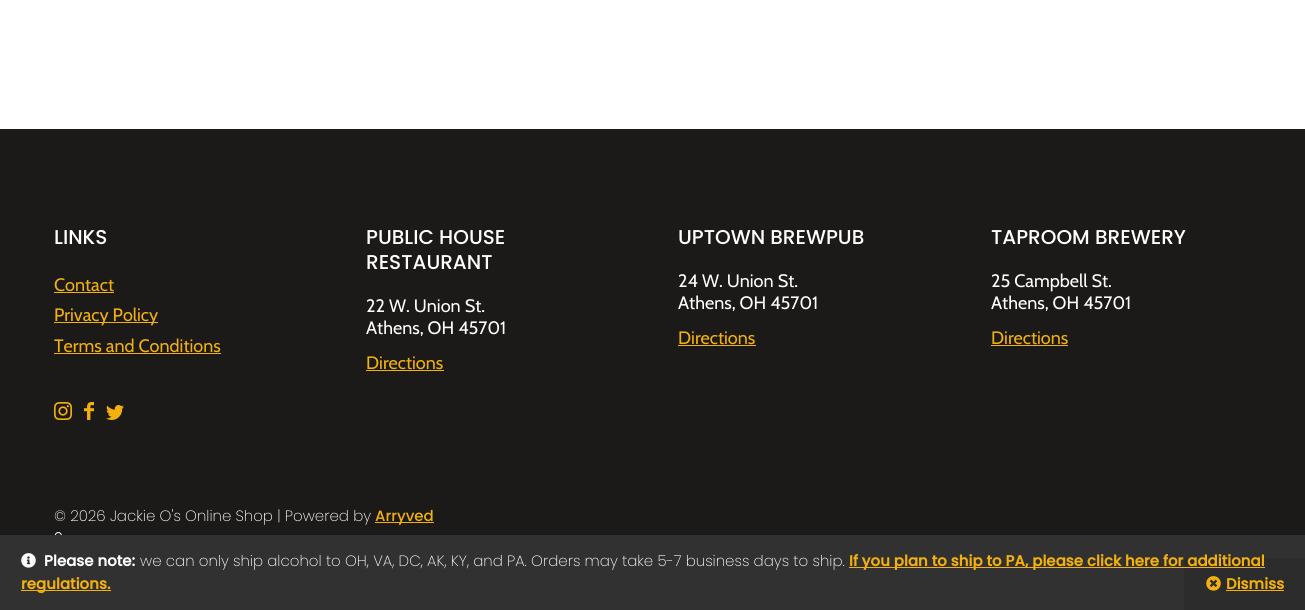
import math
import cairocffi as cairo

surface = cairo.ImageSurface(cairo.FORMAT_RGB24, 1305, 610)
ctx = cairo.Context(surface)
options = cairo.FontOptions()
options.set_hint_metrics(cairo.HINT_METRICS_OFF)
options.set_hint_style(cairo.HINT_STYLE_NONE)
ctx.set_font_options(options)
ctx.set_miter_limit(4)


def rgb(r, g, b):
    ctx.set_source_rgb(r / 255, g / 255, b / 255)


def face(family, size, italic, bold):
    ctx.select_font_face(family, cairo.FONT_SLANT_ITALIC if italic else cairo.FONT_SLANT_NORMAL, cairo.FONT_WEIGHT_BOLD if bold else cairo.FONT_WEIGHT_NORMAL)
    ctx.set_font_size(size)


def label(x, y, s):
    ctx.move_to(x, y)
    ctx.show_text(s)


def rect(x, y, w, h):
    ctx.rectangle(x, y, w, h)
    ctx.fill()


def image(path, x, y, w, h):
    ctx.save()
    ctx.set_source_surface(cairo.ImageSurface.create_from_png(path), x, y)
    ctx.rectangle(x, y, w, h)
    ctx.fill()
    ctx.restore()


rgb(255, 255, 255)
ctx.paint()
rgb(27, 26, 25)
rect(0, 129, 1305, 406)
face('Poppins Medium', 20, 0, 0)
rgb(255, 255, 255)
label(54, 244, 'LINKS')
face('Cabin', 18, 0, 0)
rgb(244, 177, 14)
label(54, 291, 'Contact')
rect(54, 292, 60, 1)
rect(54, 322, 104, 1)
label(54, 321, 'Privacy Policy')
label(54, 352, 'Terms and Conditions')
rect(54, 353, 167, 1)
image('image0.png', 54, 402, 18, 18)
image('image1.png', 84, 402, 10, 18)
image('image2.png', 106, 405, 18, 15)
face('Poppins Medium', 20, 0, 0)
rgb(255, 255, 255)
label(366, 244, 'PUBLIC HOUSE')
label(366, 269, 'RESTAURANT')
face('Cabin', 18, 0, 0)
label(366, 312, '22 W. Union St.')
label(366, 334, 'Athens, OH 45701')
rgb(244, 177, 14)
label(366, 369, 'Directions')
rect(366, 370, 78, 1)
face('Poppins Medium', 20, 0, 0)
rgb(255, 255, 255)
label(678, 244, 'UPTOWN BREWPUB')
face('Cabin', 18, 0, 0)
label(678, 287, '24 W. Union St.')
label(678, 309, 'Athens, OH 45701')
rgb(244, 177, 14)
label(678, 344, 'Directions')
rect(678, 345, 78, 1)
face('Poppins Medium', 20, 0, 0)
rgb(255, 255, 255)
label(991, 244, 'TAPROOM BREWERY')
face('Cabin', 18, 0, 0)
label(991, 287, '25 Campbell St.')
label(991, 309, 'Athens, OH 45701')
rgb(244, 177, 14)
label(991, 344, 'Directions')
rect(991, 345, 77, 1)
face('Poppins ExtraLight', 15, 0, 0)
rgb(255, 255, 255)
label(54, 521, '© 2026 Jackie O\'s Online Shop | Powered by')
rgb(244, 177, 14)
rect(375, 522, 59, 1)
face('Poppins Medium', 15, 0, 0)
label(375, 521, 'Arryved')
image('image3.png', 54, 532, 8, 3)
rgb(49, 49, 49)
rect(0, 535, 1305, 75)
image('image4.png', 21, 553, 15, 15)
face('Poppins', 15, 0, 1)
rgb(255, 255, 255)
label(44, 566, 'Please note:')
face('Poppins ExtraLight', 15, 0, 0)
label(140, 566, 'we can only ship alcohol to OH, VA, DC, AK, KY, and PA. Orders may take 5-7 business days to ship.')
rgb(44, 44, 44)
rect(1184, 558, 121, 52)
rgb(244, 176, 14)
rect(849, 567, 416, 1)
face('Poppins', 15, 0, 1)
rgb(244, 177, 14)
label(849, 566, 'If you plan to ship to PA, please click here for additional')
rgb(244, 176, 14)
rect(21, 590, 90, 1)
rgb(244, 177, 14)
label(21, 589, 'regulations.')
image('image5.png', 1206, 576, 15, 15)
label(1226, 589, 'Dismiss')
rgb(244, 176, 14)
rect(1226, 590, 58, 1)
surface.write_to_png('render.png')
